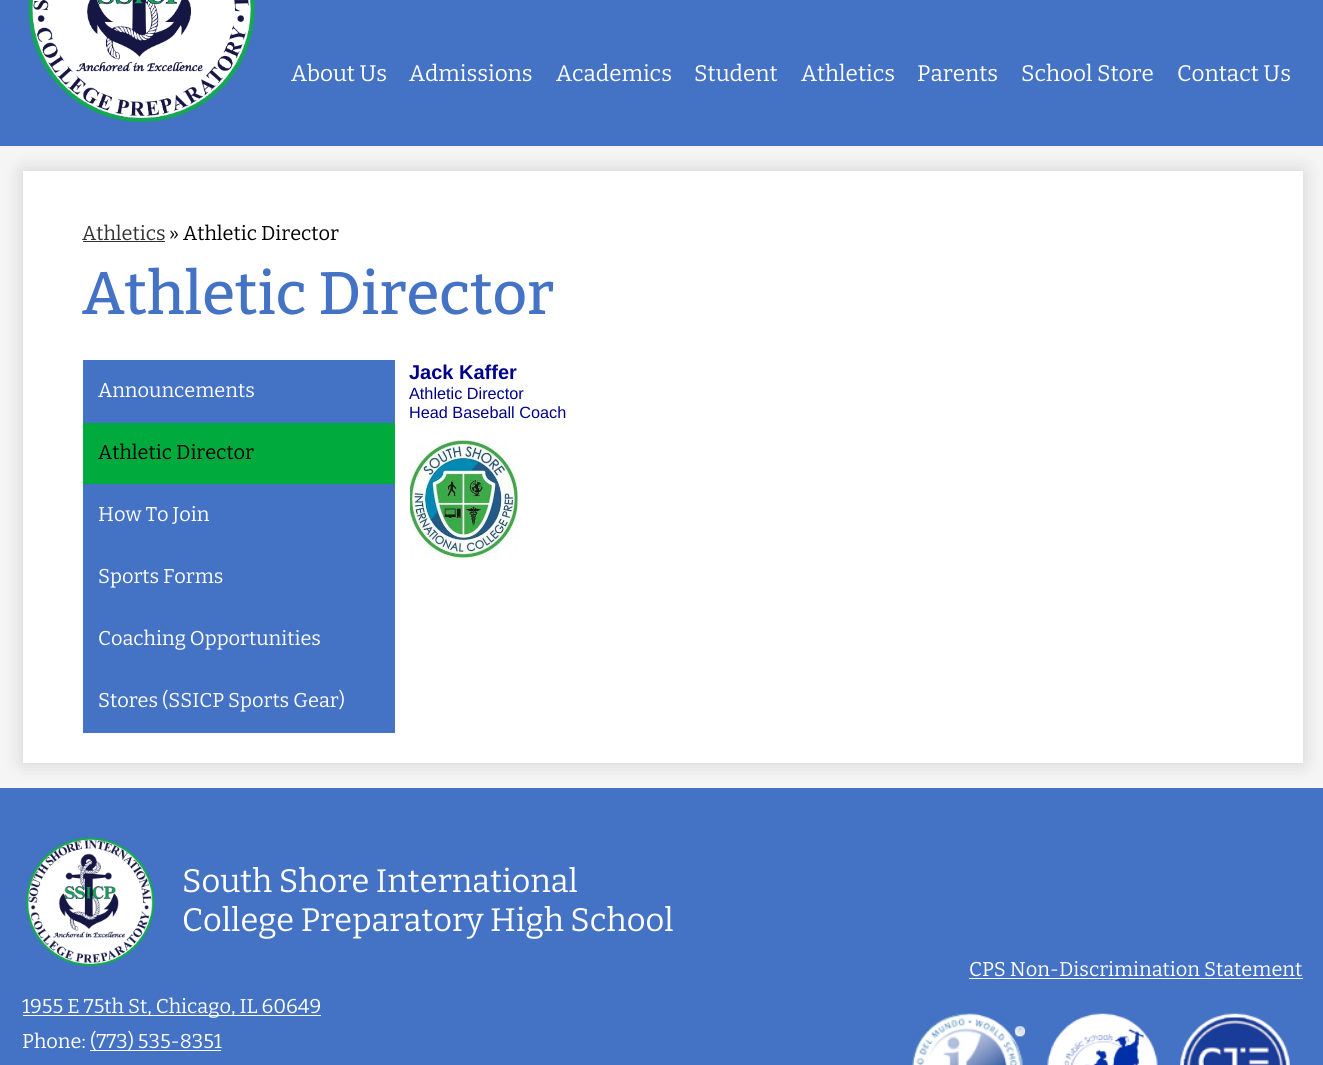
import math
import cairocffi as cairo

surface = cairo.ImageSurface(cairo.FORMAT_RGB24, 1323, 1065)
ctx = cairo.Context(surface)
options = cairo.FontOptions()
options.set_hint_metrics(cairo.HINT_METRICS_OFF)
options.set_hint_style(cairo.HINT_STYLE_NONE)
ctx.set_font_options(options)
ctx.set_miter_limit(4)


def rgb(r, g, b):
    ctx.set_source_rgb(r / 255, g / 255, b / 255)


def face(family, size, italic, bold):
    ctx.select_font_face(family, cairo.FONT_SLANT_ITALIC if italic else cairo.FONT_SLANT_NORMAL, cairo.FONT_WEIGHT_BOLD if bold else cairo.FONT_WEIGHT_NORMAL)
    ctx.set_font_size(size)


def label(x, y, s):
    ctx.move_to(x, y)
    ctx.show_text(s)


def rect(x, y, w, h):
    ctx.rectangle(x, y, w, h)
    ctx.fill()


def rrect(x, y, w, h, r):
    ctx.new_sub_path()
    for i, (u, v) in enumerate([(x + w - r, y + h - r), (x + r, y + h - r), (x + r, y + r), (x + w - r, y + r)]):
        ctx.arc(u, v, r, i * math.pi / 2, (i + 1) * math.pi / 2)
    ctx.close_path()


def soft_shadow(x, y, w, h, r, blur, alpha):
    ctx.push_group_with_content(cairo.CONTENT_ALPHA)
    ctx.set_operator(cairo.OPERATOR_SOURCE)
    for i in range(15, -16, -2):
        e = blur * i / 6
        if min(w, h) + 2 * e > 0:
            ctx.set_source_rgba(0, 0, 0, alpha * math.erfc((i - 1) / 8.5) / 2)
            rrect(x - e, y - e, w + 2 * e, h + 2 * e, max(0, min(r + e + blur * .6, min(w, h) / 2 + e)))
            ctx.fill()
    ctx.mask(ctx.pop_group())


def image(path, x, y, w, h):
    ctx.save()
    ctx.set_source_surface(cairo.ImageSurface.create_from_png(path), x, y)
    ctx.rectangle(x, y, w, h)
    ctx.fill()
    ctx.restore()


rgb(245, 245, 245)
ctx.paint()
rgb(68, 114, 196)
rect(0, 788, 1323, 277)
rgb(0, 0, 0)
soft_shadow(23, 171, 1280, 592, 0, 10, 0.15)
rgb(68, 114, 196)
rect(0, 0, 1323, 146)
image('image0.png', 28, 0, 227, 122)
face('Bitter', 22.5, 0, 0)
rgb(255, 255, 255)
label(291, 81, 'About Us')
label(409, 81, 'Admissions')
label(556, 81, 'Academics')
label(694, 81, 'Student')
label(801, 81, 'Athletics')
label(917, 81, 'Parents')
label(1021, 81, 'School Store')
label(1177, 81, 'Contact Us')
rect(23, 171, 1280, 592)
face('Bitter', 20, 0, 0)
rgb(51, 51, 51)
label(82, 240, 'Athletics')
rect(83, 241, 82, 1)
rgb(0, 0, 0)
label(169, 240, '» Athletic Director')
face('Bitter Medium', 60, 0, 0)
rgb(68, 114, 196)
label(82, 314, 'Athletic Director')
rect(83, 360, 312, 373)
face('Bitter', 20, 0, 0)
rgb(255, 255, 255)
label(98, 397, 'Announcements')
rgb(0, 170, 61)
rect(83, 423, 312, 61)
rgb(0, 0, 0)
label(98, 459, 'Athletic Director')
rgb(255, 255, 255)
label(98, 521, 'How To Join')
label(98, 583, 'Sports Forms')
label(98, 645, 'Coaching Opportunities')
label(98, 707, 'Stores (SSICP Sports Gear)')
face('Liberation Sans', 20, 0, 1)
rgb(0, 0, 139)
label(409, 379, 'Jack Kaffer')
face('Liberation Sans', 16.25, 0, 0)
label(409, 399, 'Athletic Director')
label(409, 418, 'Head Baseball Coach')
image('image1.png', 410, 440, 108, 119)
image('image2.png', 25, 837, 130, 130)
face('Bitter', 32.5, 0, 0)
rgb(255, 255, 255)
label(182, 892, 'South Shore International')
label(182, 931, 'College Preparatory High School')
rect(23, 1015, 298, 1)
face('Bitter', 20, 0, 0)
label(22, 1013, '1955 E 75th St, Chicago, IL 60649')
label(22, 1048, 'Phone:')
rect(90, 1050, 131, 1)
label(90, 1048, '(773) 535-8351')
label(969, 976, 'CPS Non-Discrimination Statement')
rect(969, 978, 334, 1)
image('image3.png', 911, 1013, 114, 52)
image('image4.png', 1047, 1013, 111, 52)
image('image5.png', 1180, 1013, 110, 52)
surface.write_to_png('render.png')
